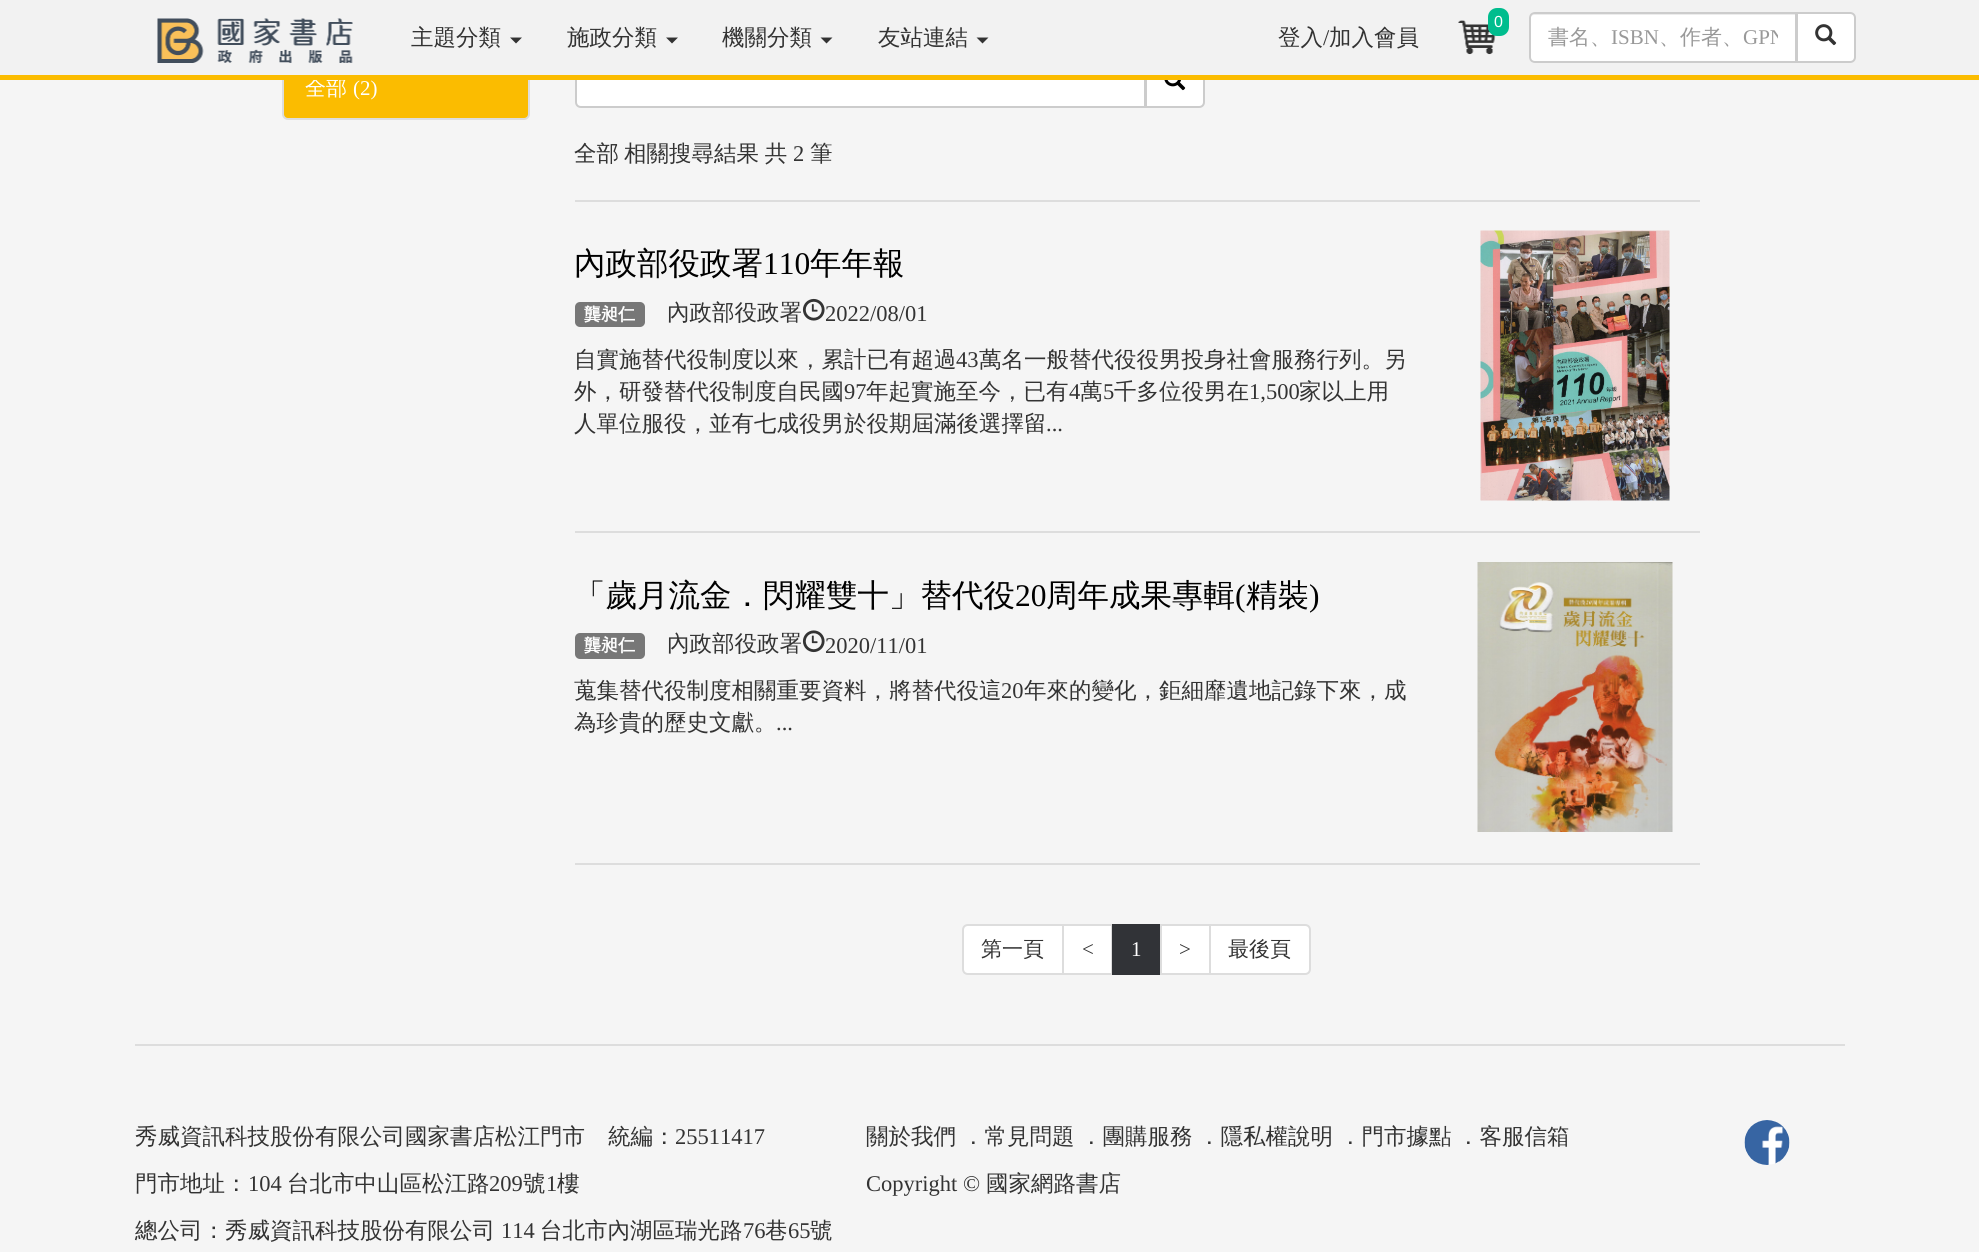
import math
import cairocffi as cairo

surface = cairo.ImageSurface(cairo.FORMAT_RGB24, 1979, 1252)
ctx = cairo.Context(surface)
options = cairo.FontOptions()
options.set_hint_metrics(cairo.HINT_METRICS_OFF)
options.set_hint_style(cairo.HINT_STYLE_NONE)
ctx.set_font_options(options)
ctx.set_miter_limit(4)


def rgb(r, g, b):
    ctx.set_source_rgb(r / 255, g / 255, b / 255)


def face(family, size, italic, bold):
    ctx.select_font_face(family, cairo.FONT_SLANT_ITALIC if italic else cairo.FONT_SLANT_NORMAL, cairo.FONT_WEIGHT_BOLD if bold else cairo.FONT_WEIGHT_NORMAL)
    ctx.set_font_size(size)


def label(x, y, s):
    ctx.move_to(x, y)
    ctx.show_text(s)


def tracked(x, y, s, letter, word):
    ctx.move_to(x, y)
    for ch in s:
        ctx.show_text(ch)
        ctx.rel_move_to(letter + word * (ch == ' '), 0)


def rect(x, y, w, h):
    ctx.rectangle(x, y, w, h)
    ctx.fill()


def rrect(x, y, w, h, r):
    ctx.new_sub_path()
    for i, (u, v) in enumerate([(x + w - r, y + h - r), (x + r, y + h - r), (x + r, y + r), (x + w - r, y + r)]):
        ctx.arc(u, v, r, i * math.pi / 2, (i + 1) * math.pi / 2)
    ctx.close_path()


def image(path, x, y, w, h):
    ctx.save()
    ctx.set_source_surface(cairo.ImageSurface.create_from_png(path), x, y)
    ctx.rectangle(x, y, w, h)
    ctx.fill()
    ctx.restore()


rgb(245, 245, 245)
ctx.paint()
rgb(251, 188, 0)
rrect(283, 58, 246, 61, 5)
ctx.fill_preserve()
rgb(221, 221, 221)
ctx.stroke()
rgb(255, 255, 255)
ctx.new_path()
ctx.move_to(581, 58)
ctx.line_to(1145, 58)
ctx.line_to(1145, 107)
ctx.line_to(581, 107)
ctx.curve_to(578, 107, 576, 105, 576, 102)
ctx.line_to(576, 63)
ctx.curve_to(576, 60, 578, 58, 581, 58)
ctx.close_path()
ctx.fill_preserve()
rgb(204, 204, 204)
ctx.stroke()
rgb(255, 255, 255)
ctx.new_path()
ctx.move_to(1146, 58)
ctx.line_to(1199, 58)
ctx.curve_to(1202, 58, 1204, 60, 1204, 63)
ctx.line_to(1204, 102)
ctx.curve_to(1204, 105, 1202, 107, 1199, 107)
ctx.line_to(1146, 107)
ctx.close_path()
ctx.fill_preserve()
rgb(204, 204, 204)
ctx.stroke()
rgb(242, 242, 242)
rect(0, 0, 1979, 75)
face('WenQuanYi Zen Hei Medium', 21, 0, 0)
rgb(255, 255, 255)
label(305, 95, '全部')
rgb(251, 188, 0)
rect(0, 75, 1979, 5)
image('image0.png', 157, 18, 196, 45)
face('WenQuanYi Zen Hei Medium', 22.5, 0, 0)
rgb(51, 51, 51)
label(411, 45, '主題分類')
ctx.new_path()
ctx.move_to(510, 37.5)
ctx.line_to(522, 37.5)
ctx.line_to(516, 43.5)
ctx.close_path()
ctx.fill()
label(567, 45, '施政分類')
ctx.new_path()
ctx.move_to(666, 37.5)
ctx.line_to(678, 37.5)
ctx.line_to(672, 43.5)
ctx.close_path()
ctx.fill()
label(722, 45, '機關分類')
ctx.new_path()
ctx.move_to(820.5, 37.5)
ctx.line_to(832.5, 37.5)
ctx.line_to(826.5, 43.5)
ctx.close_path()
ctx.fill()
label(878, 45, '友站連結')
ctx.new_path()
ctx.move_to(976.5, 37.5)
ctx.line_to(988.5, 37.5)
ctx.line_to(982.5, 43.5)
ctx.close_path()
ctx.fill()
image('image1.png', 1458, 20, 38, 35)
rgb(0, 189, 142)
rrect(1488, 8, 21, 28, 9)
ctx.fill()
face('Liberation Sans', 16, 0, 0)
rgb(255, 255, 255)
label(1494, 27, '0')
face('WenQuanYi Zen Hei Medium', 22.5, 0, 0)
rgb(51, 51, 51)
label(1278, 45, '登入')
face('Liberation Serif', 22.5, 0, 0)
label(1323, 45, '/')
face('WenQuanYi Zen Hei Medium', 22.5, 0, 0)
label(1329, 45, '加入會員')
rgb(255, 255, 255)
ctx.new_path()
ctx.move_to(1535, 12)
ctx.line_to(1797, 12)
ctx.line_to(1797, 63)
ctx.line_to(1535, 63)
ctx.curve_to(1531.5, 63, 1529, 60.5, 1529, 57)
ctx.line_to(1529, 18)
ctx.curve_to(1529, 14.5, 1531.5, 12, 1535, 12)
ctx.close_path()
ctx.fill()
rgb(236, 236, 236)
ctx.new_path()
ctx.move_to(1534, 15)
ctx.line_to(1796, 15)
ctx.line_to(1796, 14)
ctx.line_to(1535, 14)
ctx.curve_to(1532, 14, 1530, 17, 1530, 20)
ctx.curve_to(1530, 17, 1532, 15, 1534, 15)
ctx.close_path()
ctx.fill()
ctx.new_path()
ctx.move_to(1535, 13)
ctx.line_to(1796, 13)
ctx.line_to(1796, 62)
ctx.line_to(1535, 62)
ctx.curve_to(1532, 62, 1530, 60, 1530, 57)
ctx.line_to(1530, 18)
ctx.curve_to(1530, 15, 1532, 13, 1535, 13)
ctx.close_path()
rgb(204, 204, 204)
ctx.stroke()
face('WenQuanYi Zen Hei Medium', 21, 0, 0)
rgb(153, 153, 153)
label(1548, 44, '書名、')
face('Liberation Serif', 21, 0, 0)
label(1611, 44, 'ISBN')
face('WenQuanYi Zen Hei Medium', 21, 0, 0)
label(1659, 44, '、作者、')
ctx.save()
ctx.rectangle(1548, 24, 230, 27)
ctx.clip()
face('Liberation Serif', 21, 0, 0)
label(1743, 44, 'GPN')
ctx.restore()
rgb(255, 255, 255)
ctx.new_path()
ctx.move_to(1797, 13)
ctx.line_to(1850, 13)
ctx.curve_to(1853, 13, 1855, 15, 1855, 18)
ctx.line_to(1855, 57)
ctx.curve_to(1855, 60, 1853, 62, 1850, 62)
ctx.line_to(1797, 62)
ctx.close_path()
ctx.fill_preserve()
rgb(204, 204, 204)
ctx.stroke()
image('image2.png', 1815, 24, 22, 22)
face('Liberation Serif', 21, 0, 0)
rgb(255, 255, 255)
label(353, 95, '(2)')
image('image3.png', 1164, 80, 22, 11)
face('WenQuanYi Zen Hei Medium', 22.5, 0, 0)
rgb(51, 51, 51)
label(574, 161, '全部')
tracked(624, 161, '相關搜尋結果 共', 0, -1)
face('Liberation Serif', 22.5, 0, 0)
label(793, 161, '2')
face('WenQuanYi Zen Hei Medium', 22.5, 0, 0)
label(810, 161, '筆')
rgb(221, 221, 221)
rect(575, 200, 1125, 2)
face('WenQuanYi Zen Hei Medium', 31.5, 0, 0)
rgb(0, 0, 0)
label(574, 274, '內政部役政署')
face('Liberation Serif', 31.5, 0, 0)
label(763, 274, '110')
face('WenQuanYi Zen Hei Medium', 31.5, 0, 0)
label(810, 274, '年年報')
rgb(119, 119, 119)
rrect(575, 302, 70, 25, 5)
ctx.fill()
face('WenQuanYi Zen Hei', 17, 0, 1)
rgb(255, 255, 255)
label(584, 320, '龔昶仁')
face('WenQuanYi Zen Hei Medium', 22.5, 0, 0)
rgb(51, 51, 51)
label(667, 320, '內政部役政署')
image('image4.png', 802, 298, 23, 23)
face('Liberation Serif', 22.5, 0, 0)
label(825, 321, '2022/08/01')
face('WenQuanYi Zen Hei Medium', 22.5, 0, 0)
label(574, 367, '自實施替代役制度以來，累計已有超過')
face('Liberation Serif', 22.5, 0, 0)
label(956, 367, '43')
face('WenQuanYi Zen Hei Medium', 22.5, 0, 0)
label(979, 367, '萬名一般替代役役男投身社會服務行列。另')
label(574, 399, '外，研發替代役制度自民國')
face('Liberation Serif', 22.5, 0, 0)
label(844, 399, '97')
face('WenQuanYi Zen Hei Medium', 22.5, 0, 0)
label(866, 399, '年起實施至今，已有')
face('Liberation Serif', 22.5, 0, 0)
label(1069, 399, '4')
face('WenQuanYi Zen Hei Medium', 22.5, 0, 0)
label(1080, 399, '萬')
face('Liberation Serif', 22.5, 0, 0)
label(1103, 399, '5')
face('WenQuanYi Zen Hei Medium', 22.5, 0, 0)
label(1114, 399, '千多位役男在')
face('Liberation Serif', 22.5, 0, 0)
label(1249, 399, '1,500')
face('WenQuanYi Zen Hei Medium', 22.5, 0, 0)
label(1299, 399, '家以上用')
label(574, 431, '人單位服役，並有七成役男於役期屆滿後選擇留')
face('Liberation Serif', 22.5, 0, 0)
label(1046, 431, '...')
image('image5.png', 1480, 230, 190, 271)
rgb(221, 221, 221)
rect(575, 531, 1125, 2)
face('WenQuanYi Zen Hei Medium', 31.5, 0, 0)
rgb(0, 0, 0)
label(574, 606, '「歲月流金．閃耀雙十」替代役')
face('Liberation Serif', 31.5, 0, 0)
label(1015, 606, '20')
face('WenQuanYi Zen Hei Medium', 31.5, 0, 0)
label(1046, 606, '周年成果專輯')
face('Liberation Serif', 31.5, 0, 0)
label(1235, 606, '(')
face('WenQuanYi Zen Hei Medium', 31.5, 0, 0)
label(1246, 606, '精裝')
face('Liberation Serif', 31.5, 0, 0)
label(1309, 606, ')')
rgb(119, 119, 119)
rrect(575, 633, 70, 26, 5)
ctx.fill()
face('WenQuanYi Zen Hei', 17, 0, 1)
rgb(255, 255, 255)
label(584, 651, '龔昶仁')
face('WenQuanYi Zen Hei Medium', 22.5, 0, 0)
rgb(51, 51, 51)
label(667, 651, '內政部役政署')
image('image6.png', 802, 630, 23, 23)
face('Liberation Serif', 22.5, 0, 0)
label(825, 653, '2020/11/01')
face('WenQuanYi Zen Hei Medium', 22.5, 0, 0)
label(574, 698, '蒐集替代役制度相關重要資料，將替代役這')
face('Liberation Serif', 22.5, 0, 0)
label(1001, 698, '20')
face('WenQuanYi Zen Hei Medium', 22.5, 0, 0)
label(1024, 698, '年來的變化，鉅細靡遺地記錄下來，成')
label(574, 730, '為珍貴的歷史文獻。')
face('Liberation Serif', 22.5, 0, 0)
label(776, 730, '...')
image('image7.png', 1477, 562, 196, 270)
rgb(221, 221, 221)
rect(575, 863, 1125, 2)
rgb(255, 255, 255)
ctx.new_path()
ctx.move_to(968, 925)
ctx.line_to(1063, 925)
ctx.line_to(1063, 974)
ctx.line_to(968, 974)
ctx.curve_to(965, 974, 963, 972, 963, 969)
ctx.line_to(963, 930)
ctx.curve_to(963, 927, 965, 925, 968, 925)
ctx.close_path()
ctx.fill_preserve()
rgb(221, 221, 221)
ctx.stroke()
face('WenQuanYi Zen Hei Medium', 21, 0, 0)
rgb(51, 51, 51)
label(981, 956, '第一頁')
rgb(255, 255, 255)
ctx.rectangle(1063, 925, 49, 49)
ctx.fill_preserve()
rgb(221, 221, 221)
ctx.stroke()
face('Liberation Serif', 21, 0, 0)
rgb(51, 51, 51)
label(1082, 956, '<')
rgb(49, 51, 55)
rect(1112, 924, 48, 51)
rgb(255, 255, 255)
label(1131, 956, '1')
ctx.rectangle(1161, 925, 49, 49)
ctx.fill_preserve()
rgb(221, 221, 221)
ctx.stroke()
rgb(51, 51, 51)
label(1179, 956, '>')
rgb(255, 255, 255)
ctx.new_path()
ctx.move_to(1210, 925)
ctx.line_to(1305, 925)
ctx.curve_to(1308, 925, 1310, 927, 1310, 930)
ctx.line_to(1310, 969)
ctx.curve_to(1310, 972, 1308, 974, 1305, 974)
ctx.line_to(1210, 974)
ctx.close_path()
ctx.fill_preserve()
rgb(221, 221, 221)
ctx.stroke()
face('WenQuanYi Zen Hei Medium', 21, 0, 0)
rgb(51, 51, 51)
label(1228, 956, '最後頁')
rgb(221, 221, 221)
rect(135, 1044, 1710, 2)
face('WenQuanYi Zen Hei Medium', 22.5, 0, 0)
rgb(51, 51, 51)
label(135, 1144, '秀威資訊科技股份有限公司國家書店松江門市')
label(608, 1144, '統編：')
face('Liberation Serif', 22.5, 0, 0)
label(675, 1144, '25511417')
face('WenQuanYi Zen Hei Medium', 22.5, 0, 0)
label(135, 1191, '門市地址：')
face('Liberation Serif', 22.5, 0, 0)
label(248, 1191, '104')
face('WenQuanYi Zen Hei Medium', 22.5, 0, 0)
label(287, 1191, '台北市中山區松江路')
face('Liberation Serif', 22.5, 0, 0)
label(489, 1191, '209')
face('WenQuanYi Zen Hei Medium', 22.5, 0, 0)
label(523, 1191, '號')
face('Liberation Serif', 22.5, 0, 0)
label(546, 1191, '1')
face('WenQuanYi Zen Hei Medium', 22.5, 0, 0)
label(557, 1191, '樓')
label(866, 1144, '關於我們')
label(962, 1144, '．常見問題')
label(1080, 1144, '．團購服務')
label(1198, 1144, '．隱私權說明')
label(1339, 1144, '．門市據點')
label(1457, 1144, '．客服信箱')
face('Liberation Serif', 22.5, 0, 0)
label(866, 1191, 'Copyright ©')
face('WenQuanYi Zen Hei Medium', 22.5, 0, 0)
label(986, 1191, '國家網路書店')
image('image8.png', 1744, 1120, 46, 45)
label(135, 1238, '總公司：秀威資訊科技股份有限公司')
face('Liberation Serif', 22.5, 0, 0)
label(501, 1238, '114')
face('WenQuanYi Zen Hei Medium', 22.5, 0, 0)
label(540, 1238, '台北市內湖區瑞光路')
face('Liberation Serif', 22.5, 0, 0)
label(743, 1238, '76')
face('WenQuanYi Zen Hei Medium', 22.5, 0, 0)
label(765, 1238, '巷')
face('Liberation Serif', 22.5, 0, 0)
label(788, 1238, '65')
face('WenQuanYi Zen Hei Medium', 22.5, 0, 0)
label(810, 1238, '號')
surface.write_to_png('render.png')
